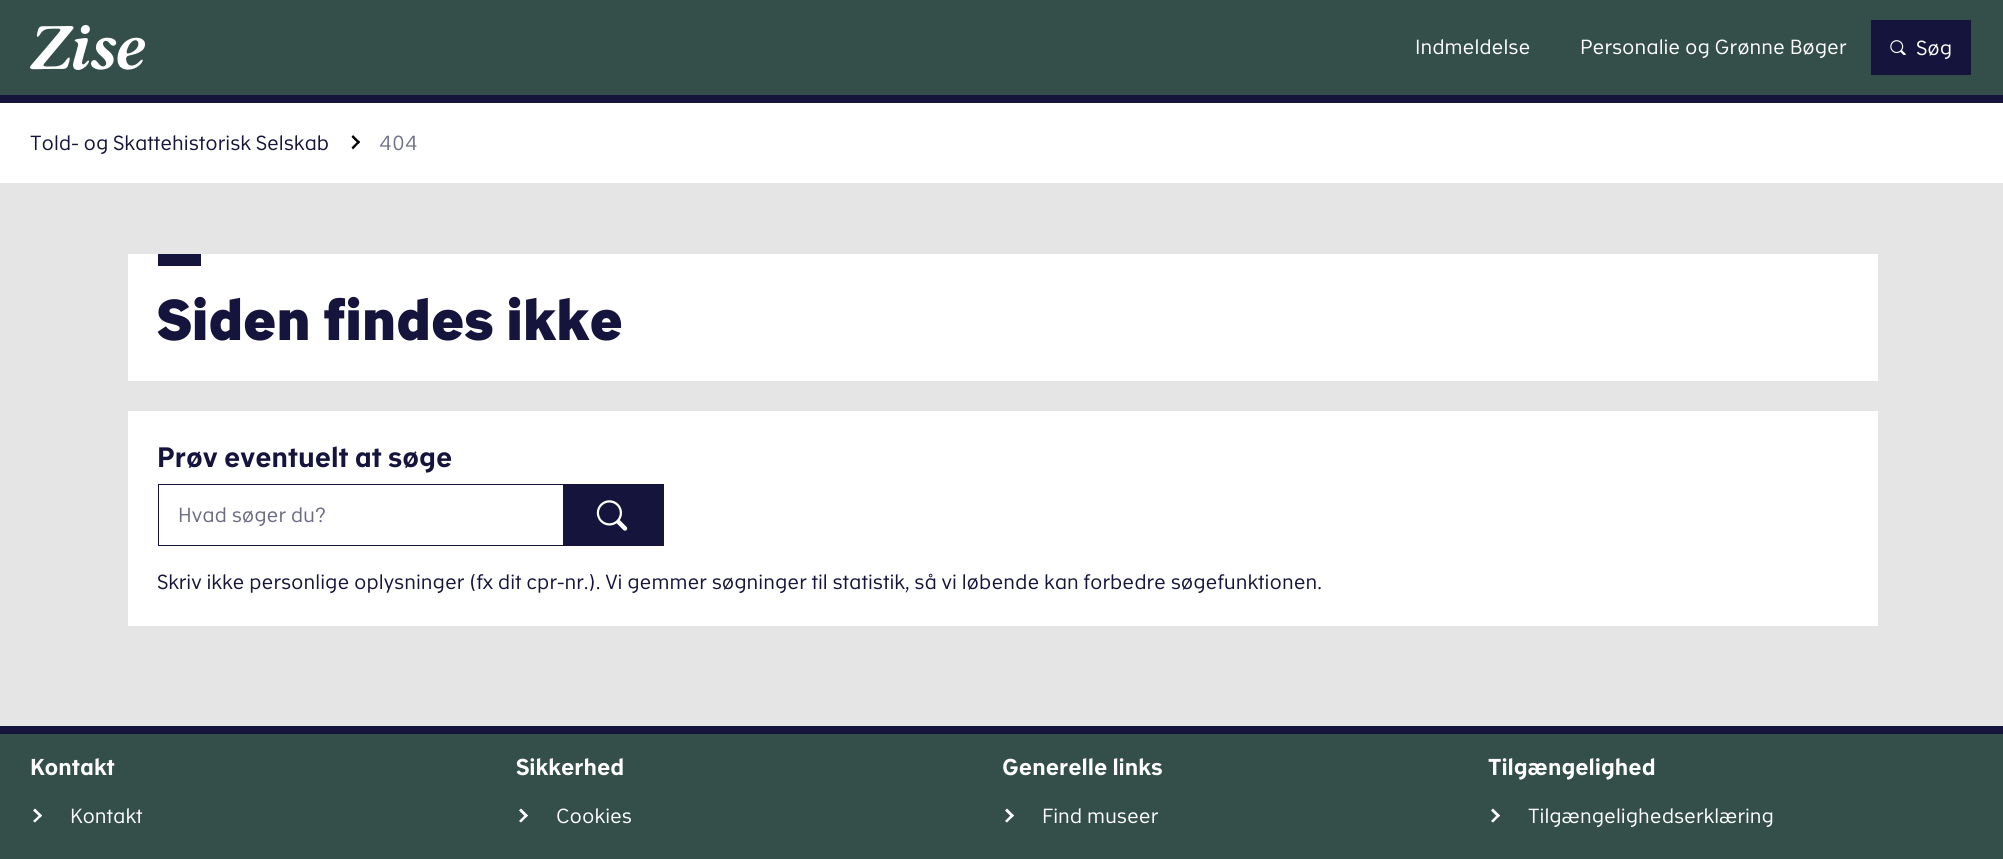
import math
import cairocffi as cairo

surface = cairo.ImageSurface(cairo.FORMAT_RGB24, 2003, 859)
ctx = cairo.Context(surface)
options = cairo.FontOptions()
options.set_hint_metrics(cairo.HINT_METRICS_OFF)
options.set_hint_style(cairo.HINT_STYLE_NONE)
ctx.set_font_options(options)
ctx.set_miter_limit(4)


def rgb(r, g, b):
    ctx.set_source_rgb(r / 255, g / 255, b / 255)


def face(family, size, italic, bold):
    ctx.select_font_face(family, cairo.FONT_SLANT_ITALIC if italic else cairo.FONT_SLANT_NORMAL, cairo.FONT_WEIGHT_BOLD if bold else cairo.FONT_WEIGHT_NORMAL)
    ctx.set_font_size(size)


def label(x, y, s):
    ctx.move_to(x, y)
    ctx.show_text(s)


def rect(x, y, w, h):
    ctx.rectangle(x, y, w, h)
    ctx.fill()


def image(path, x, y, w, h):
    ctx.save()
    ctx.set_source_surface(cairo.ImageSurface.create_from_png(path), x, y)
    ctx.rectangle(x, y, w, h)
    ctx.fill()
    ctx.restore()


rgb(229, 229, 229)
ctx.paint()
rgb(52, 79, 73)
rect(0, 0, 2003, 95)
rgb(20, 20, 60)
rect(0, 95, 2003, 8)
image('image0.png', 30, 25, 115, 45)
face('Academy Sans', 20, 0, 0)
rgb(255, 255, 255)
label(1415, 54, 'Indmeldelse')
label(1580, 54, 'Personalie og Grønne Bøger')
rgb(20, 20, 60)
rect(1871, 20, 100, 55)
image('image1.png', 1890, 40, 16, 15)
rgb(255, 255, 255)
label(1916, 55, 'Søg')
rect(0, 103, 2003, 80)
rgb(20, 20, 60)
label(30, 150, 'Told- og Skattehistorisk Selskab')
rgb(0, 0, 0)
ctx.new_path()
ctx.move_to(353, 135)
ctx.line_to(360, 142)
ctx.line_to(358.5, 144)
ctx.line_to(351.5, 137)
ctx.close_path()
ctx.fill()
ctx.new_path()
ctx.move_to(358.5, 140.5)
ctx.line_to(360, 142)
ctx.line_to(353, 149.5)
ctx.line_to(351.5, 147.5)
ctx.close_path()
ctx.fill()
rgb(114, 114, 138)
label(379, 150, '404')
rgb(255, 255, 255)
rect(128, 254, 1750, 127)
rgb(20, 20, 60)
rect(158, 254, 43, 12)
face('Academy Sans Black', 56.25, 0, 0)
label(157, 340, 'Siden findes ikke')
rgb(255, 255, 255)
rect(128, 411, 1750, 215)
face('Academy Sans', 27.5, 0, 1)
rgb(20, 20, 60)
label(157, 467, 'Prøv eventuelt at søge')
ctx.rectangle(158.5, 484.5, 405, 61)
ctx.set_line_width(1)
ctx.stroke()
face('Academy Sans', 20, 0, 0)
rgb(107, 107, 132)
label(178, 522, 'Hvad søger du?')
rgb(20, 20, 60)
rect(564, 484, 100, 62)
image('image2.png', 596, 500, 32, 31)
label(157, 589, 'Skriv ikke personlige oplysninger (fx dit cpr-nr.). Vi gemmer søgninger til statistik, så vi løbende kan forbedre søgefunktionen.')
rgb(52, 79, 73)
rect(0, 734, 2003, 125)
rgb(20, 20, 60)
rect(0, 726, 2003, 8)
face('Academy Sans', 22.5, 0, 1)
rgb(255, 255, 255)
label(30, 775, 'Kontakt')
ctx.new_path()
ctx.move_to(35, 808.5)
ctx.line_to(42, 815.5)
ctx.line_to(40.5, 817.5)
ctx.line_to(33, 810.5)
ctx.close_path()
ctx.fill()
ctx.new_path()
ctx.move_to(40.5, 814)
ctx.line_to(42, 815.5)
ctx.line_to(35, 822.5)
ctx.line_to(33, 821)
ctx.close_path()
ctx.fill()
face('Academy Sans', 20, 0, 0)
label(70, 823, 'Kontakt')
face('Academy Sans', 22.5, 0, 1)
label(516, 775, 'Sikkerhed')
ctx.new_path()
ctx.move_to(521, 808.5)
ctx.line_to(528, 815.5)
ctx.line_to(526, 817.5)
ctx.line_to(519, 810.5)
ctx.close_path()
ctx.fill()
ctx.new_path()
ctx.move_to(526, 814)
ctx.line_to(528, 815.5)
ctx.line_to(521, 822.5)
ctx.line_to(519, 821)
ctx.close_path()
ctx.fill()
face('Academy Sans', 20, 0, 0)
label(556, 823, 'Cookies')
face('Academy Sans', 22.5, 0, 1)
label(1002, 775, 'Generelle links')
ctx.new_path()
ctx.move_to(1007, 808.5)
ctx.line_to(1014, 815.5)
ctx.line_to(1012, 817.5)
ctx.line_to(1005, 810.5)
ctx.close_path()
ctx.fill()
ctx.new_path()
ctx.move_to(1012, 814)
ctx.line_to(1014, 815.5)
ctx.line_to(1007, 822.5)
ctx.line_to(1005, 821)
ctx.close_path()
ctx.fill()
face('Academy Sans', 20, 0, 0)
label(1042, 823, 'Find museer')
face('Academy Sans', 22.5, 0, 1)
label(1488, 775, 'Tilgængelighed')
ctx.new_path()
ctx.move_to(1493, 808.5)
ctx.line_to(1500, 815.5)
ctx.line_to(1498, 817.5)
ctx.line_to(1491, 810.5)
ctx.close_path()
ctx.fill()
ctx.new_path()
ctx.move_to(1498, 814)
ctx.line_to(1500, 815.5)
ctx.line_to(1493, 822.5)
ctx.line_to(1491, 821)
ctx.close_path()
ctx.fill()
face('Academy Sans', 20, 0, 0)
label(1528, 823, 'Tilgængelighedserklæring')
surface.write_to_png('render.png')
